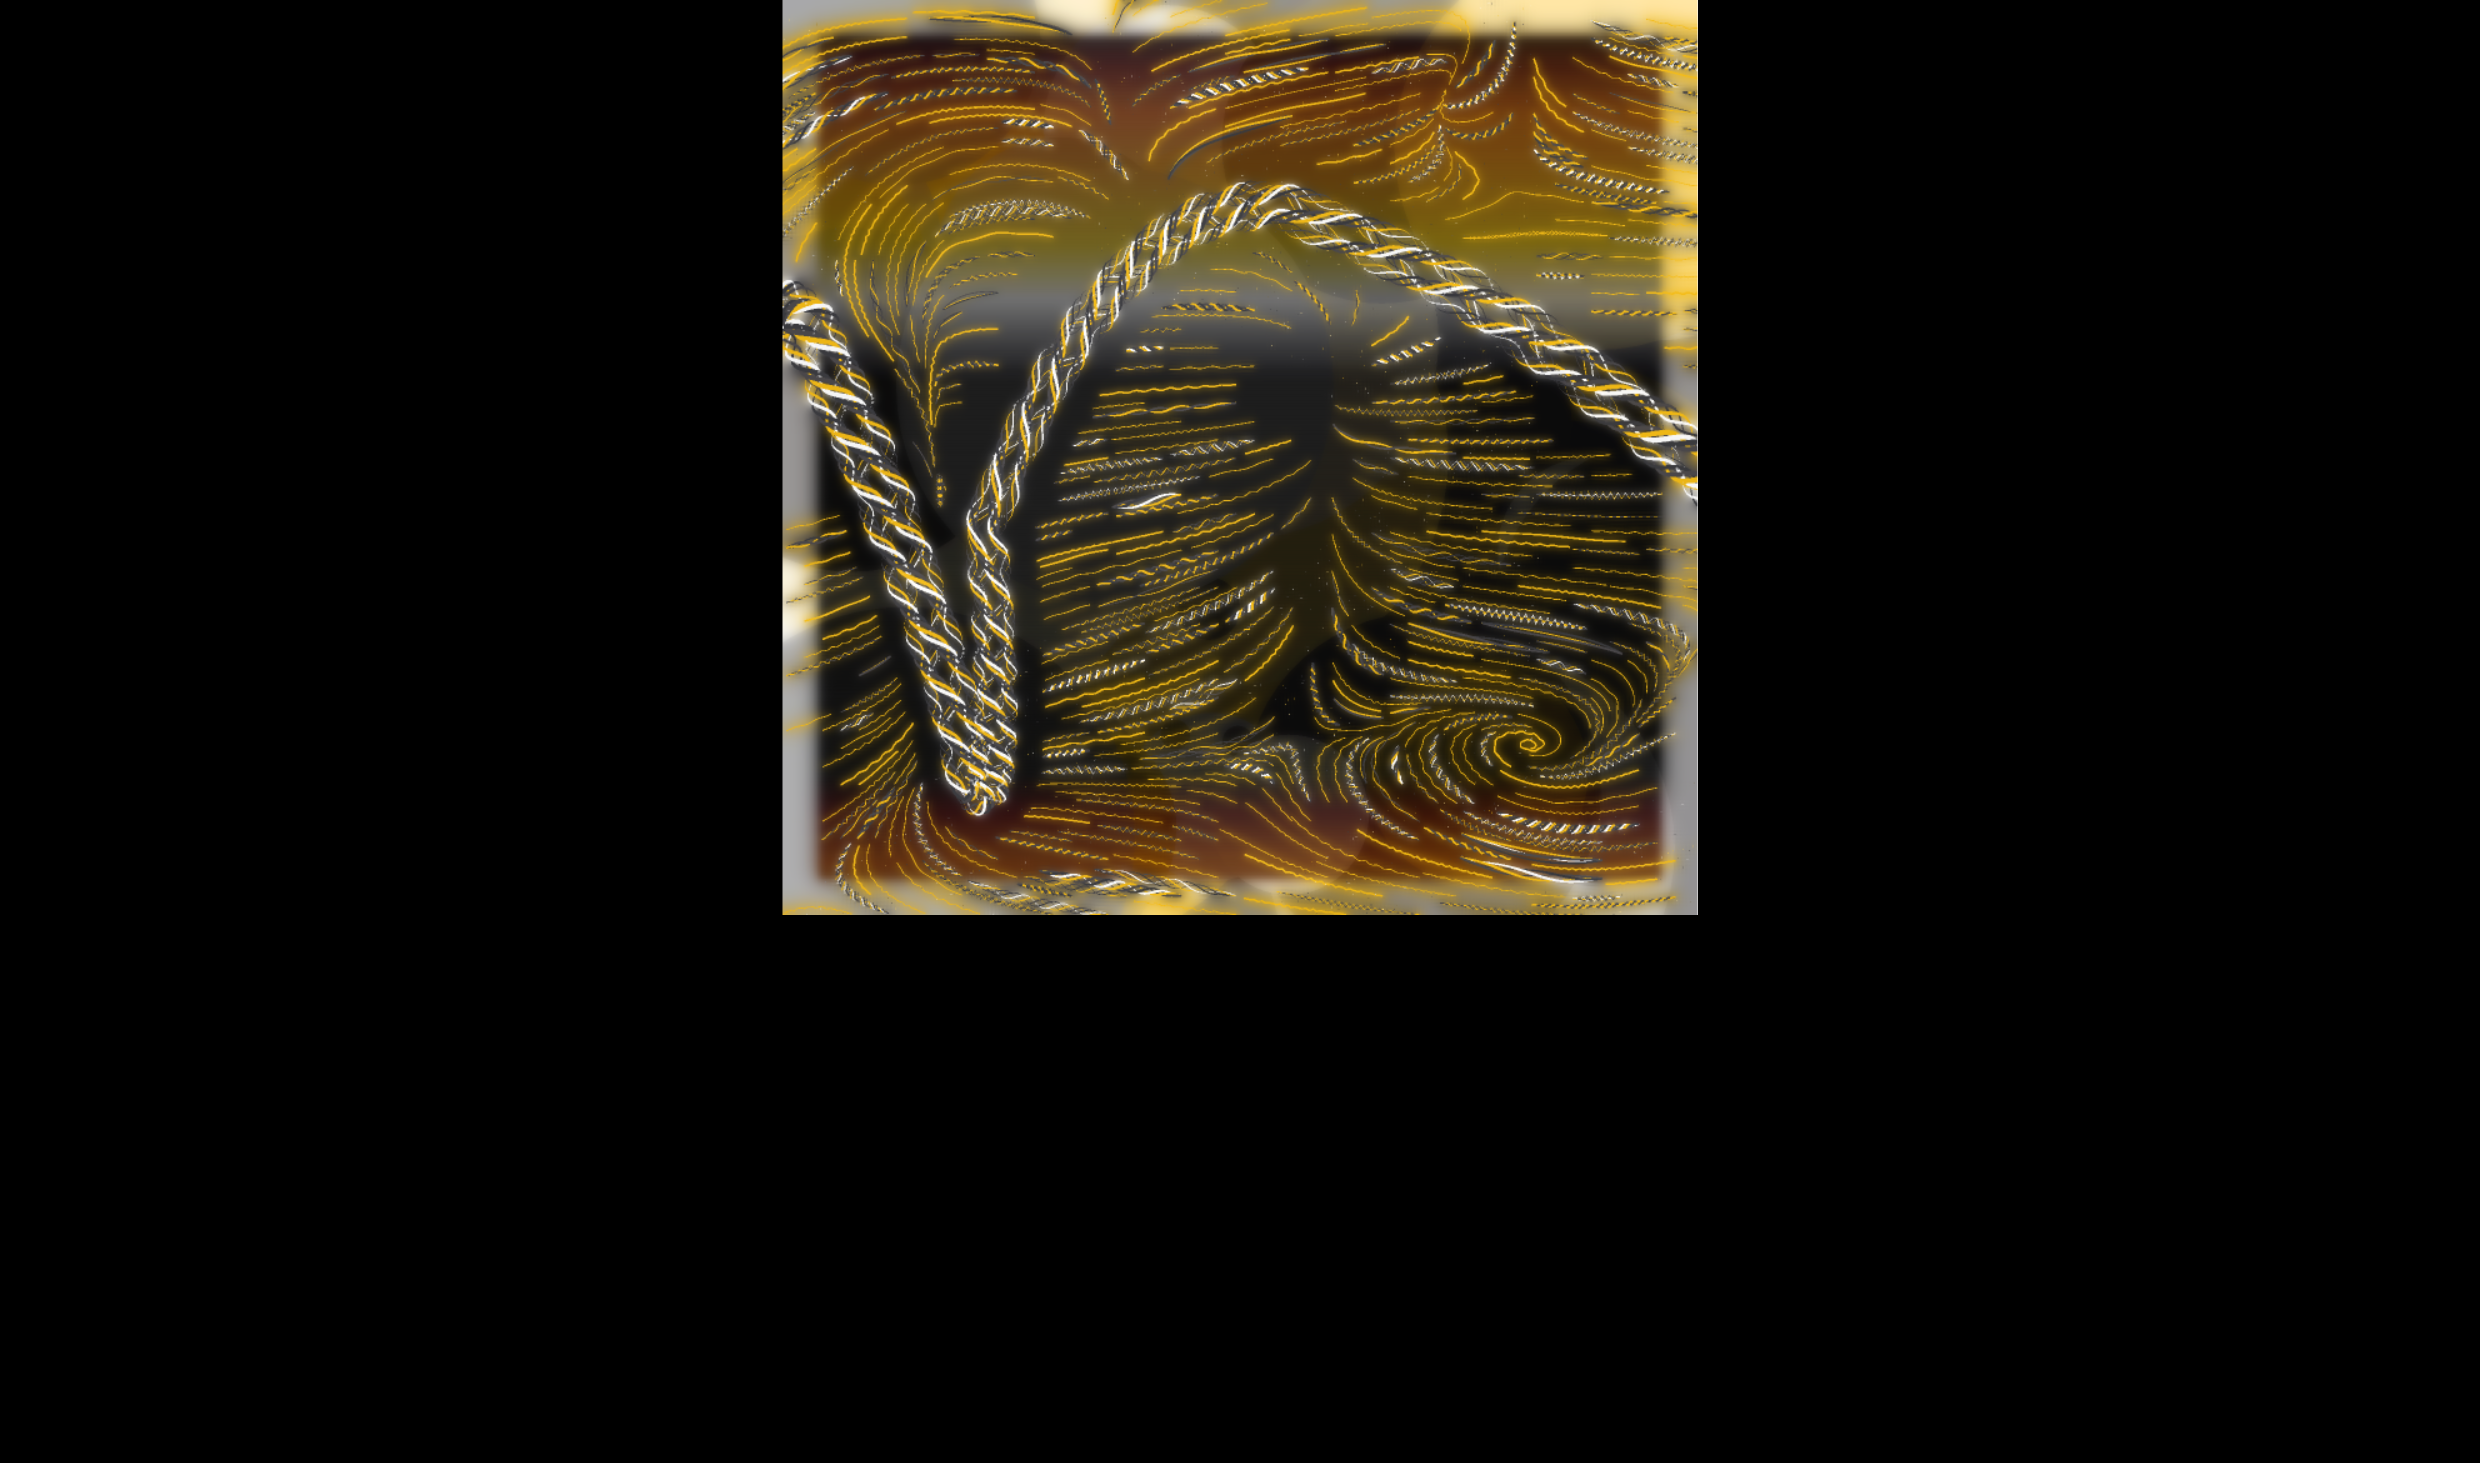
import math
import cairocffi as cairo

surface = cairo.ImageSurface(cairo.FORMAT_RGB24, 2480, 1463)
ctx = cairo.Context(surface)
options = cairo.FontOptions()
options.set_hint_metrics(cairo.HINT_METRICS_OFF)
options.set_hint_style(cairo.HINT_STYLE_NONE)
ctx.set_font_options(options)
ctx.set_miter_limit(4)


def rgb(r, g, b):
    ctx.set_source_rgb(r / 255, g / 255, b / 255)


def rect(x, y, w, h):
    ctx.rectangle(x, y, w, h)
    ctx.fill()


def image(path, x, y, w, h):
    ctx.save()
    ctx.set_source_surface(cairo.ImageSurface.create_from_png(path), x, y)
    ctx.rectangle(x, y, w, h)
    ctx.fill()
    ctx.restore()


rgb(0, 0, 0)
ctx.paint()
rgb(255, 255, 255)
rect(1697, 0, 1, 915)
image('image0.png', 782, 0, 916, 915)
surface.write_to_png('render.png')
